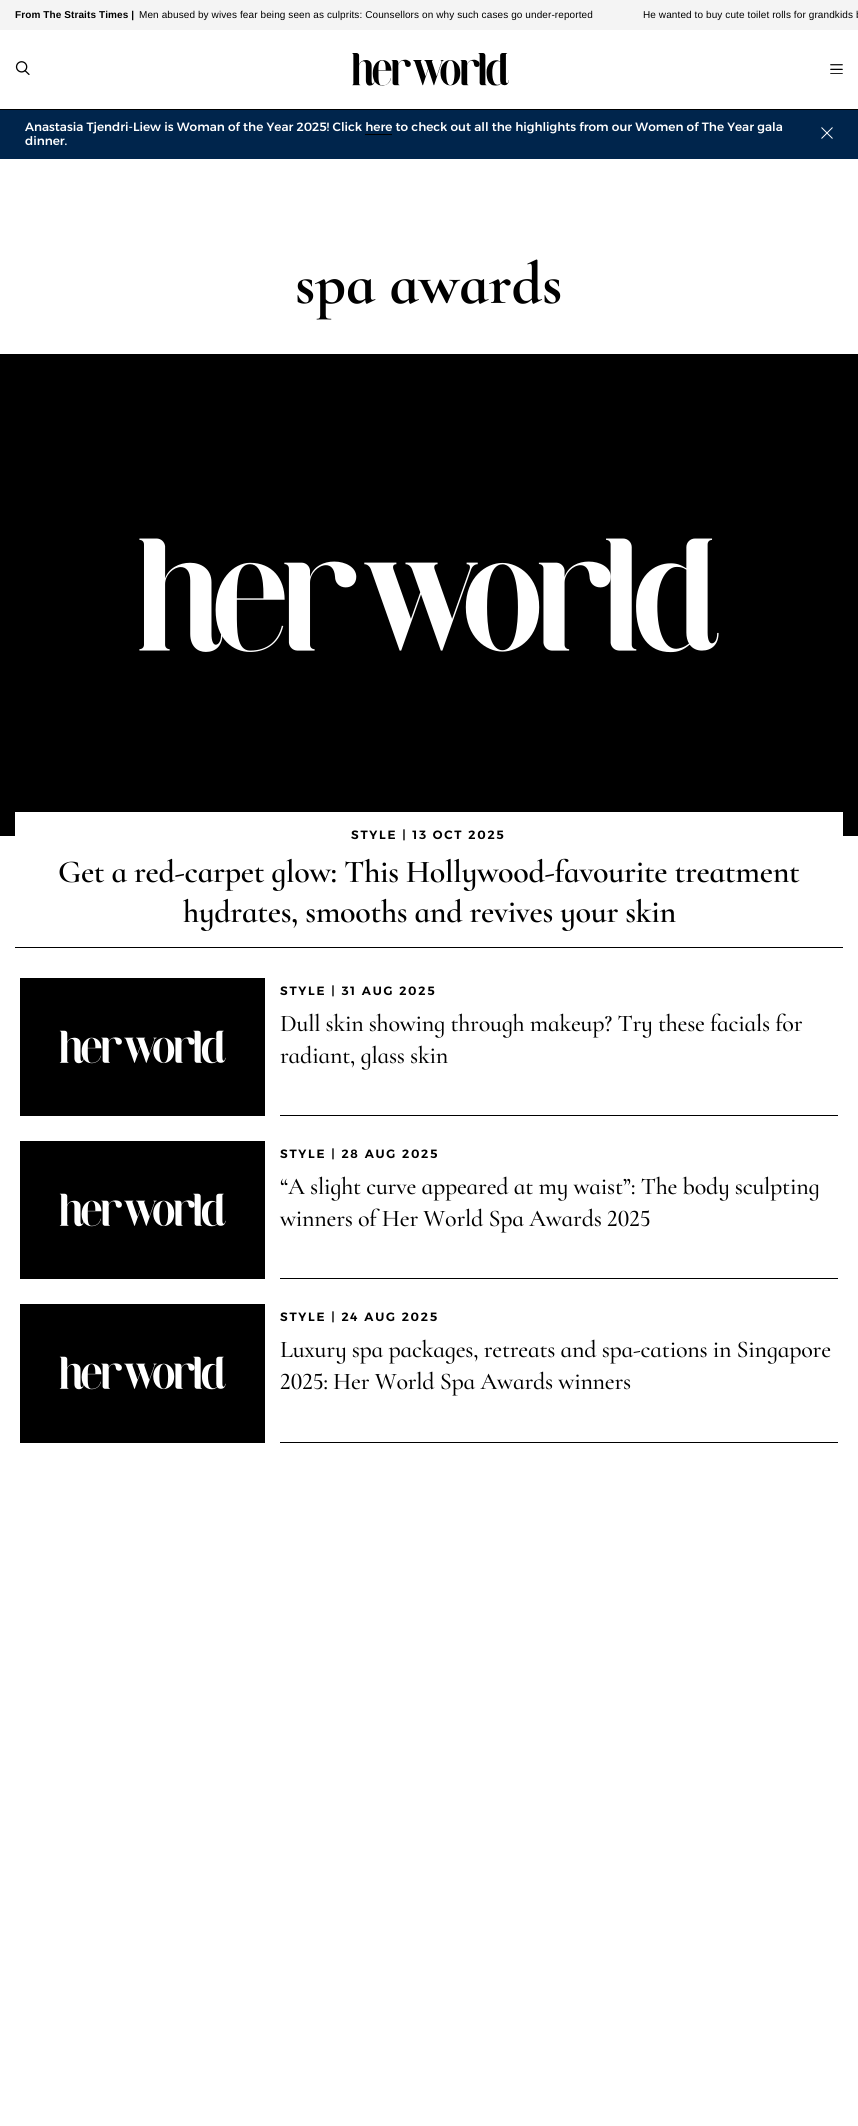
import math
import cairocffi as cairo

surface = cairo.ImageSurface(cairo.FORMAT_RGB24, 858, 2126)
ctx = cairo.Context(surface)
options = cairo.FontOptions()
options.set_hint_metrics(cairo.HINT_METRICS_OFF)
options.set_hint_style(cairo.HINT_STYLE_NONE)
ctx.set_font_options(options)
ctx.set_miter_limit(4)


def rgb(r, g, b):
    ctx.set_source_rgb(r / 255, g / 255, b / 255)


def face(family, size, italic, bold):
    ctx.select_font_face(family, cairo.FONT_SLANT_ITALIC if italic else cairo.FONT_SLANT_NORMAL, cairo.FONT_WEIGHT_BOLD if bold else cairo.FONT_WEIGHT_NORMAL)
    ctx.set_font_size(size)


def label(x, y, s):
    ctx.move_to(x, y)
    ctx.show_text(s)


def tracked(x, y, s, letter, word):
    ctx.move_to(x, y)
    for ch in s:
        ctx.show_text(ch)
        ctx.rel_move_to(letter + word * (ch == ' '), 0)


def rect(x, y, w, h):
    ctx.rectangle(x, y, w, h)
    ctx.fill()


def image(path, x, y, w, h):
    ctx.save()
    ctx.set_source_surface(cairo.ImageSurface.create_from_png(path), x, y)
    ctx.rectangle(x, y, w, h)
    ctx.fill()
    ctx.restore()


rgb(255, 255, 255)
ctx.paint()
rgb(244, 244, 244)
rect(0, 0, 858, 30)
face('Liberation Sans', 10, 0, 1)
rgb(0, 0, 0)
tracked(15, 18, 'From The Straits Times |', 0.1, 0)
face('Liberation Sans', 10, 0, 0)
tracked(139, 18, 'Men abused by wives fear being seen as culprits: Counsellors on why such cases go under-reported', 0.1, 0)
tracked(643, 18, 'He wanted to buy cute toilet rolls for grandkids b', 0.1, 0)
rect(0, 109, 858, 1)
image('image0.png', 15, 61, 15, 14)
image('image1.png', 352, 53, 157, 33)
image('image2.png', 830, 64, 13, 10)
rgb(0, 37, 76)
rect(0, 110, 858, 49)
face('Alexandria Medium', 12, 0, 0)
rgb(255, 255, 255)
label(25, 131, 'Anastasia Tjendri-Liew is Woman of the Year 2025! Click here to check out all the highlights from our Women of The Year gala')
rgb(0, 0, 0)
rect(365, 134, 27, 1)
rgb(255, 255, 255)
label(25, 145, 'dinner.')
image('image3.png', 821, 127, 12, 12)
face('Cormorant Infant', 60, 0, 1)
rgb(0, 0, 0)
label(295, 303, 'spa awards')
rect(0, 354, 858, 482)
image('image4.png', 139, 538, 580, 115)
rgb(255, 255, 255)
rect(15, 812, 828, 24)
rgb(0, 0, 0)
rect(15, 947, 828, 1)
face('Alexandria SemiBold', 12, 0, 0)
tracked(351, 839, 'STYLE | 13 OCT 2025', 1.75, 0)
face('Cormorant Infant SemiBold', 32, 0, 0)
tracked(58, 882, 'Get a red-carpet glow: This Hollywood-favourite treatment', -0.32, 0)
tracked(183, 922, 'hydrates, smooths and revives your skin', -0.32, 0)
rect(20, 978, 245, 138)
image('image5.png', 59, 1030, 167, 34)
rect(280, 1115, 558, 1)
face('Alexandria SemiBold', 12, 0, 0)
tracked(280, 995, 'STYLE | 31 AUG 2025', 1.75, 0)
face('Cormorant Infant Medium', 24, 0, 0)
tracked(280, 1031, 'Dull skin showing through makeup? Try these facials for', -0.25, 0)
tracked(280, 1063, 'radiant, glass skin', -0.25, 0)
rect(20, 1141, 245, 138)
image('image5.png', 59, 1193, 167, 34)
rect(280, 1278, 558, 1)
face('Alexandria SemiBold', 12, 0, 0)
tracked(280, 1158, 'STYLE | 28 AUG 2025', 1.75, 0)
face('Cormorant Infant Medium', 24, 0, 0)
tracked(280, 1194, '“A slight curve appeared at my waist”: The body sculpting', -0.25, 0)
tracked(280, 1226, 'winners of Her World Spa Awards 2025', -0.25, 0)
rect(20, 1304, 245, 139)
image('image5.png', 59, 1356, 167, 34)
rect(280, 1442, 558, 1)
face('Alexandria SemiBold', 12, 0, 0)
tracked(280, 1321, 'STYLE | 24 AUG 2025', 1.75, 0)
face('Cormorant Infant Medium', 24, 0, 0)
tracked(280, 1357, 'Luxury spa packages, retreats and spa-cations in Singapore', -0.25, 0)
tracked(280, 1389, '2025: Her World Spa Awards winners', -0.25, 0)
surface.write_to_png('render.png')
